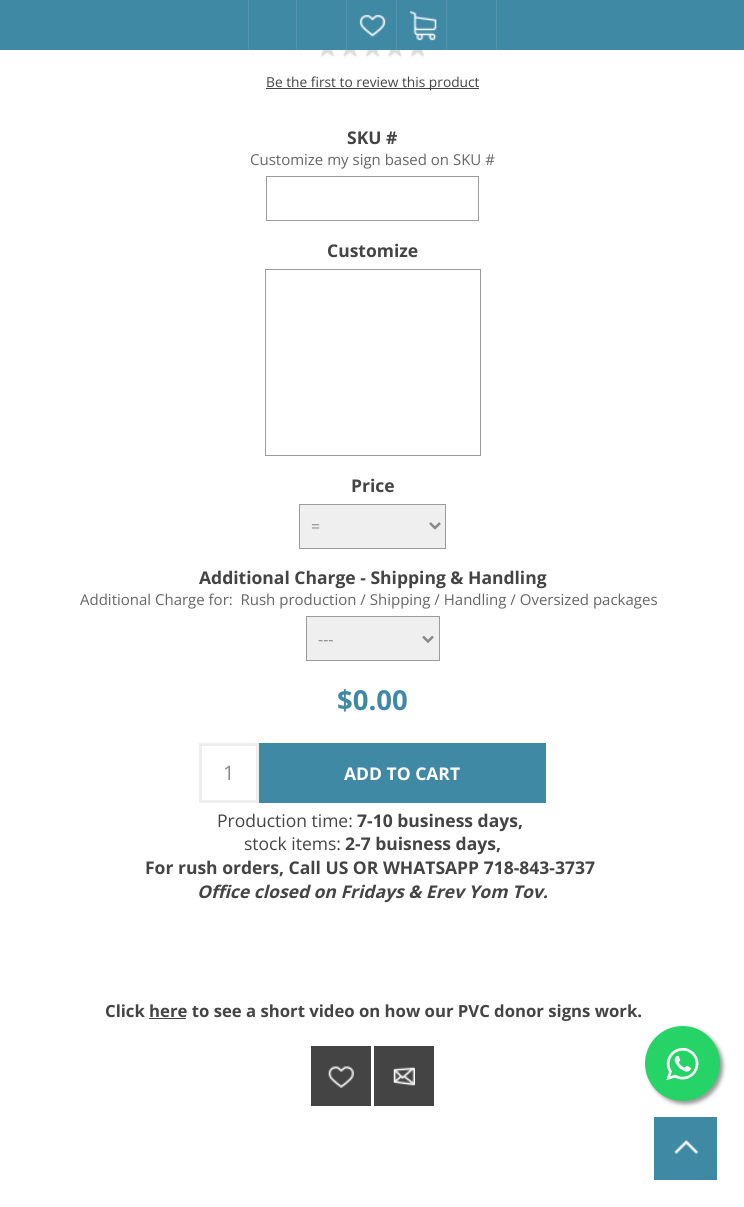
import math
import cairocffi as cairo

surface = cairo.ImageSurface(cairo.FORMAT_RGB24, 744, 1207)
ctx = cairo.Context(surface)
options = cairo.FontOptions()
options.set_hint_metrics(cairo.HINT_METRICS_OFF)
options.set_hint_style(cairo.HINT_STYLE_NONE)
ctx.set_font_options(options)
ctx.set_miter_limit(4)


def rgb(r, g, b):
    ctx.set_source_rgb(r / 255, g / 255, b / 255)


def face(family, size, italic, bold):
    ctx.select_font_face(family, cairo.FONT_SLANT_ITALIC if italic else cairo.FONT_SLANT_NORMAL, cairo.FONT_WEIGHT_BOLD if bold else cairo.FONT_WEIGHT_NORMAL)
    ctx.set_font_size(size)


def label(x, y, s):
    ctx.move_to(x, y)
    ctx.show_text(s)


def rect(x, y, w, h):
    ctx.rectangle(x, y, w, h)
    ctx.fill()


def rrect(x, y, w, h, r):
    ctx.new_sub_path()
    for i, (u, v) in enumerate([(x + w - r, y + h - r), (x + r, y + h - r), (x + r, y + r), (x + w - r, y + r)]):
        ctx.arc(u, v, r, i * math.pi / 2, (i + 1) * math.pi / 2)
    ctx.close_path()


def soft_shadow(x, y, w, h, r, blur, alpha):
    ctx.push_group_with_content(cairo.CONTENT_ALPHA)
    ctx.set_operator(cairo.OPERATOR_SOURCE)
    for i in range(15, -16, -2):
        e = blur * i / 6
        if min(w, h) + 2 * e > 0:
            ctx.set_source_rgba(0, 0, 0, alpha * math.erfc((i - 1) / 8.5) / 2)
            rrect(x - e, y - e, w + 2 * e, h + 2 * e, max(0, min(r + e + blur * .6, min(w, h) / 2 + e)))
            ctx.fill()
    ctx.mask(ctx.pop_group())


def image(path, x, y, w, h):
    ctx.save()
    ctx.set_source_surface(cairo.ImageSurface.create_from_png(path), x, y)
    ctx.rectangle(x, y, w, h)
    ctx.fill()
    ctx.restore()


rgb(255, 255, 255)
ctx.paint()
rgb(64, 137, 164)
rect(0, 0, 744, 50)
rgb(83, 149, 173)
rect(296, 0, 1, 50)
rect(248, 0, 1, 50)
rect(346, 0, 1, 50)
image('image0.png', 359, 14, 27, 23)
rect(396, 0, 1, 50)
image('image1.png', 409, 11, 28, 30)
rect(446, 0, 1, 50)
rect(496, 0, 1, 50)
image('image2.png', 320, 50, 105, 7)
rgb(68, 68, 68)
rect(266, 88, 213, 1)
face('Open Sans', 13.75, 0, 0)
label(266, 87, 'Be the first to review this product')
face('Open Sans', 17.5, 0, 1)
label(347, 144, 'SKU #')
face('Open Sans', 15, 0, 0)
rgb(102, 102, 102)
label(250, 165, 'Customize my sign based on SKU #')
ctx.rectangle(266.5, 176.5, 212, 44)
rgb(155, 155, 155)
ctx.set_line_width(1)
ctx.stroke()
face('Open Sans', 17.5, 0, 1)
rgb(68, 68, 68)
label(327, 257, 'Customize')
ctx.rectangle(265.5, 269.5, 215, 186)
rgb(155, 155, 155)
ctx.stroke()
rgb(68, 68, 68)
label(351, 492, 'Price')
rgb(239, 239, 239)
ctx.rectangle(299.5, 504.5, 146, 44)
ctx.fill_preserve()
rgb(155, 155, 155)
ctx.stroke()
ctx.new_path()
ctx.move_to(430, 523)
ctx.line_to(435, 528)
ctx.line_to(440, 523)
rgb(136, 136, 136)
ctx.set_line_width(2.5)
ctx.stroke()
face('Open Sans', 16, 0, 0)
label(311, 532, '=')
face('Open Sans', 17.5, 0, 1)
rgb(68, 68, 68)
label(199, 584, 'Additional Charge - Shipping & Handling')
face('Open Sans', 15, 0, 0)
rgb(102, 102, 102)
label(80, 605, 'Additional Charge for:  Rush production / Shipping / Handling / Oversized packages')
rgb(239, 239, 239)
ctx.rectangle(306.5, 616.5, 133, 44)
ctx.fill_preserve()
rgb(155, 155, 155)
ctx.set_line_width(1)
ctx.stroke()
ctx.new_path()
ctx.move_to(423, 636.5)
ctx.line_to(428, 641.5)
ctx.line_to(433, 636.5)
rgb(136, 136, 136)
ctx.set_line_width(2.5)
ctx.stroke()
face('Open Sans', 16, 0, 0)
label(318, 645, '---')
face('Open Sans', 27.5, 0, 1)
rgb(64, 137, 164)
label(337, 710, '$0.00')
ctx.rectangle(200.5, 744.5, 57, 57)
rgb(238, 238, 238)
ctx.set_line_width(3)
ctx.stroke()
face('Open Sans', 20, 0, 0)
rgb(136, 136, 136)
label(223, 780, '1')
rgb(64, 137, 164)
rect(259, 743, 287, 60)
face('Open Sans', 17.5, 0, 1)
rgb(255, 255, 255)
label(344, 780, 'ADD TO CART')
face('Open Sans', 17.5, 0, 0)
rgb(68, 68, 68)
label(217, 827, 'Production time:')
face('Open Sans', 17.5, 0, 1)
label(357, 827, '7-10 business days,')
face('Open Sans', 17.5, 0, 0)
label(244, 850, 'stock items:')
face('Open Sans', 17.5, 0, 1)
label(345, 850, '2-7 buisness days,')
label(145, 874, 'For rush orders, Call US OR WHATSAPP 718-843-3737')
face('Open Sans', 17.5, 1, 1)
label(197, 898, 'Office closed on Fridays & Erev Yom Tov.')
face('Open Sans', 16.7, 0, 1)
label(105, 1017, 'Click here to see a short video on how our PVC donor signs work.')
rect(149, 1018, 37, 1)
rect(311, 1046, 60, 60)
image('image3.png', 328, 1066, 26, 22)
rect(374, 1046, 60, 60)
image('image4.png', 393, 1067, 22, 19)
rgb(153, 153, 153)
soft_shadow(648, 1029, 75, 75, 37.5, 2, 1)
rgb(37, 211, 102)
ctx.arc(682.5, 1063.5, 37.5, 0, 2 * math.pi)
ctx.fill()
image('image5.png', 666, 1047, 33, 34)
rgb(64, 137, 164)
rect(654, 1117, 63, 63)
image('image6.png', 673, 1140, 26, 14)
surface.write_to_png('render.png')
